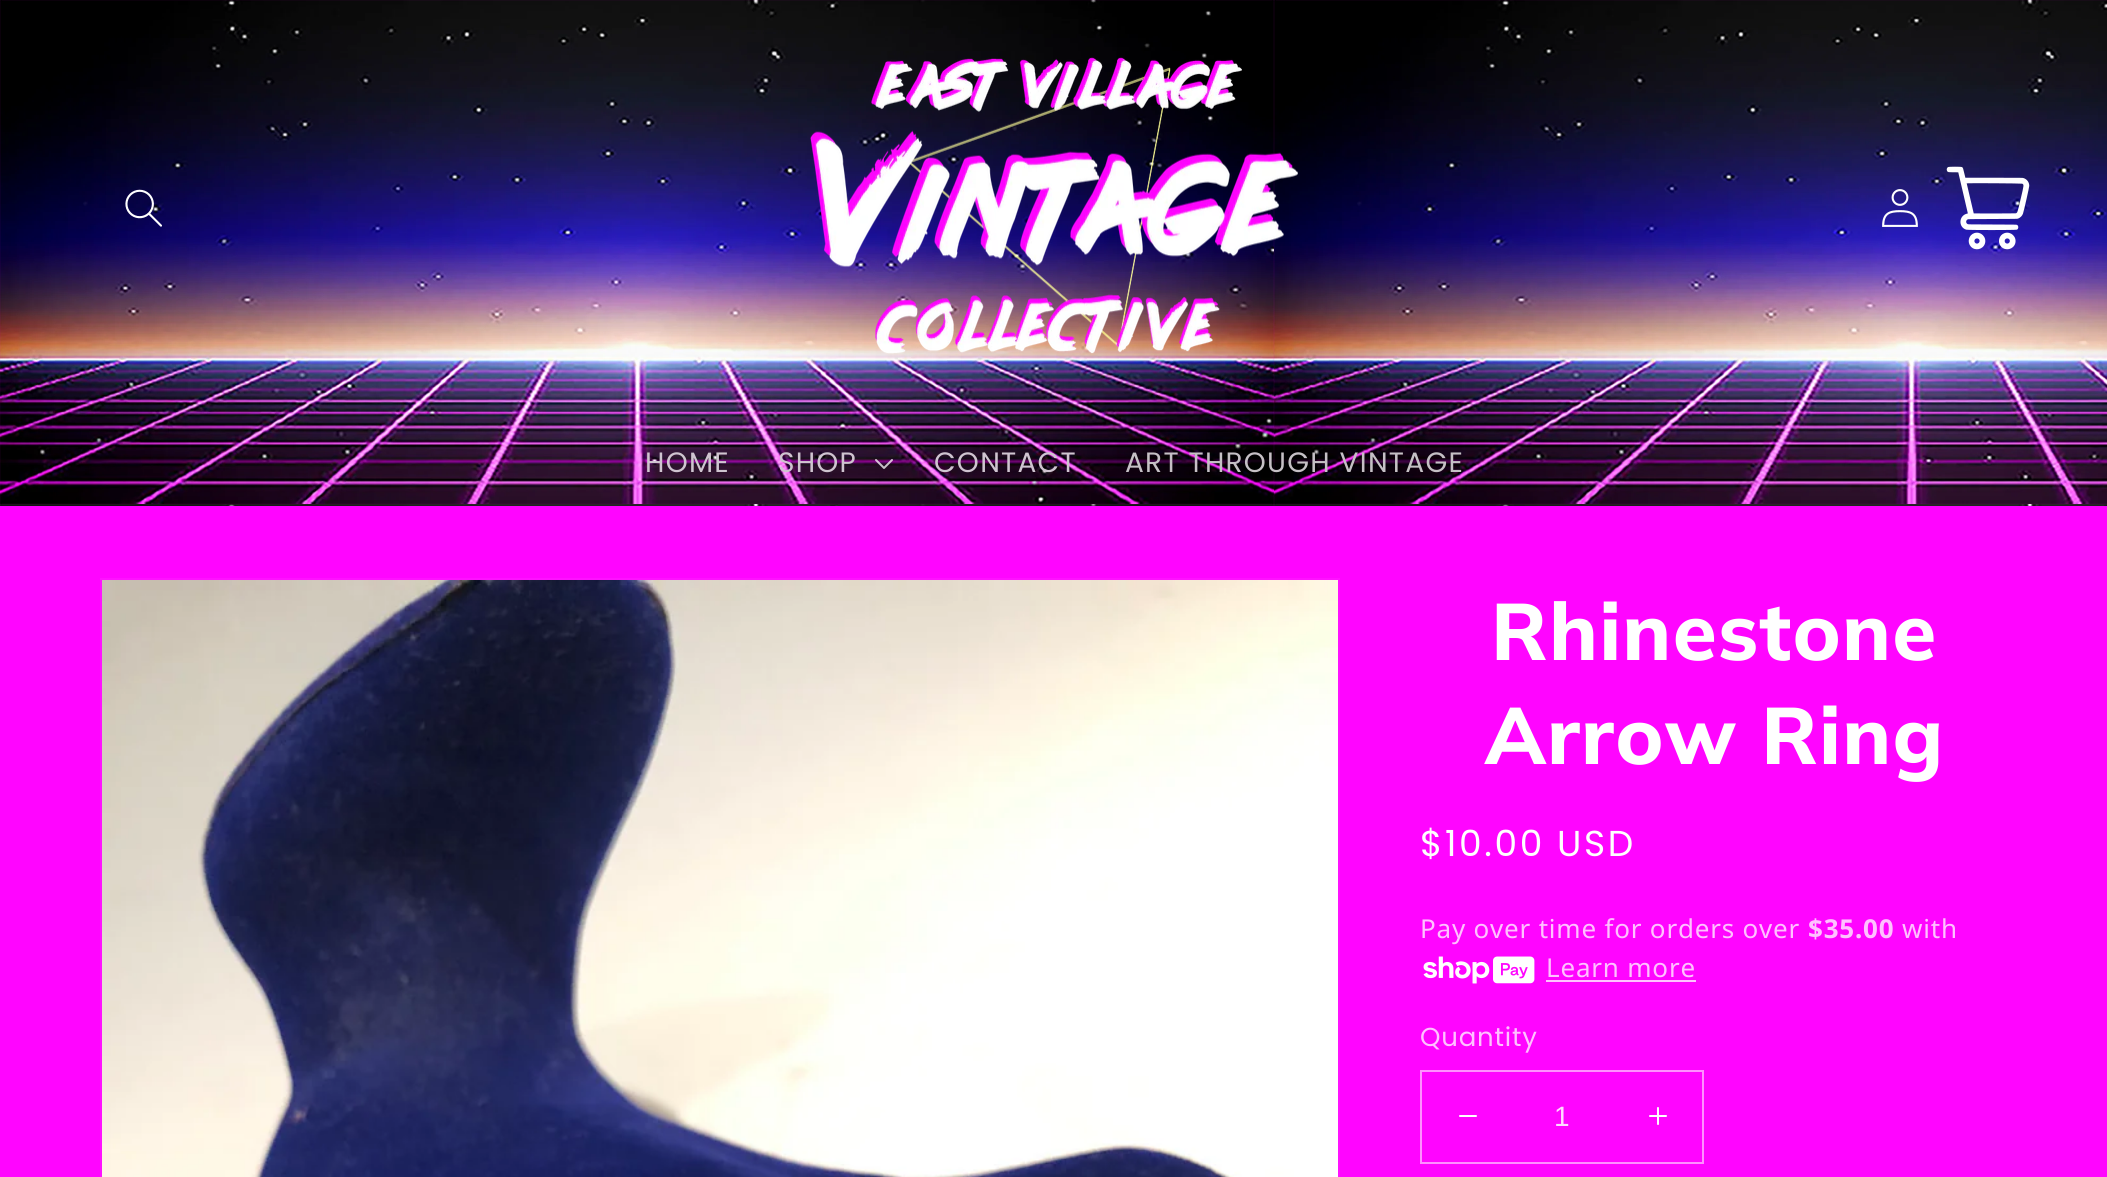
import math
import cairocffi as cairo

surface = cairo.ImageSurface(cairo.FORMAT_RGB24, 2107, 1177)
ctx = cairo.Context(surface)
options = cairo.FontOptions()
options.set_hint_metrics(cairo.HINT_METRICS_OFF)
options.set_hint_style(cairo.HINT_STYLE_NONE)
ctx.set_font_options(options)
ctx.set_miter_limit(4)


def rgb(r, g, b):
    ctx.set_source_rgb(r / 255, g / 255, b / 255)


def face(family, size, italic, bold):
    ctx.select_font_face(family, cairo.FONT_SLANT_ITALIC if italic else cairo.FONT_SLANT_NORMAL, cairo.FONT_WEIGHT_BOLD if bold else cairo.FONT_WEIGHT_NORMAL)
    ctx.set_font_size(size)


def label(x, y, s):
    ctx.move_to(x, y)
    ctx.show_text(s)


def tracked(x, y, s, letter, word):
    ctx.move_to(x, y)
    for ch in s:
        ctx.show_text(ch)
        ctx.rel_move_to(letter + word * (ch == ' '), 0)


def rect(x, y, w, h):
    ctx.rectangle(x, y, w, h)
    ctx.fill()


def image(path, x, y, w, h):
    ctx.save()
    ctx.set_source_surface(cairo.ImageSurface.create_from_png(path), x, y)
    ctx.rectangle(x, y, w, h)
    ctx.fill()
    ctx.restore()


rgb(255, 5, 255)
ctx.paint()
image('image0.png', 0, 0, 2107, 506)
ctx.set_source_rgba(1, 1, 1, 0.08)
rect(0, 504, 2107, 2)
image('image1.png', 125, 189, 37, 38)
image('image2.png', 810, 57, 488, 297)
image('image3.png', 1882, 189, 36, 38)
image('image4.png', 1946, 166, 84, 84)
face('Poppins', 28, 0, 0)
rgb(207, 196, 208)
tracked(645, 472, 'HOME', 1.25, 0)
tracked(778, 472, 'SHOP', 1.25, 0)
image('image5.png', 875, 459, 18, 10)
tracked(934, 472, 'CONTACT', 1.25, 0)
rgb(197, 192, 197)
tracked(1125, 472, 'ART THROUGH VINTAGE', 1.25, 0)
ctx.rectangle(101, 579, 1238, 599)
rgb(255, 18, 255)
ctx.stroke()
image('image6.png', 102, 580, 1236, 597)
face('Muli ExtraBold', 80, 0, 0)
rgb(255, 255, 255)
tracked(1491, 660, 'Rhinestone', 1.25, 0)
tracked(1485, 764, 'Arrow Ring', 1.25, 0)
face('Poppins', 36, 0, 0)
tracked(1420, 856, '$10.00 USD', 2.6, 0)
face('Noto Sans', 26, 0, 0)
rgb(255, 193, 255)
tracked(1420, 938, 'Pay over time for orders over', 0.8, 0)
face('Noto Sans', 26, 0, 1)
tracked(1808, 938, '$35.00', 0.8, 0)
face('Noto Sans', 26, 0, 0)
tracked(1902, 938, 'with', 0.8, 0)
image('image7.png', 1423, 956, 112, 28)
tracked(1546, 977, 'Learn more', 0.8, 0)
rect(1546, 980, 150, 2)
face('Poppins', 26, 0, 0)
tracked(1420, 1046, 'Quantity', 0.8, 0)
image('image8.png', 1459, 1115, 18, 2)
image('image9.png', 1649, 1107, 18, 18)
ctx.rectangle(1421, 1071, 282, 92)
rgb(255, 143, 255)
ctx.stroke()
face('Liberation Sans', 28, 0, 0)
rgb(255, 218, 255)
label(1554, 1126, '1')
surface.write_to_png('render.png')
